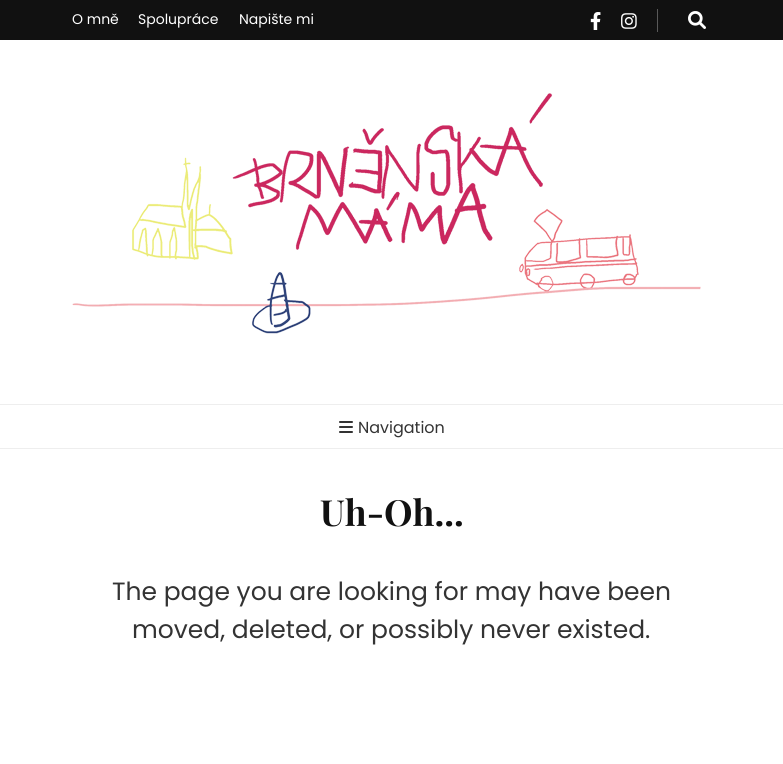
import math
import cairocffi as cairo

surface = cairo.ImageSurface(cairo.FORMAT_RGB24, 783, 764)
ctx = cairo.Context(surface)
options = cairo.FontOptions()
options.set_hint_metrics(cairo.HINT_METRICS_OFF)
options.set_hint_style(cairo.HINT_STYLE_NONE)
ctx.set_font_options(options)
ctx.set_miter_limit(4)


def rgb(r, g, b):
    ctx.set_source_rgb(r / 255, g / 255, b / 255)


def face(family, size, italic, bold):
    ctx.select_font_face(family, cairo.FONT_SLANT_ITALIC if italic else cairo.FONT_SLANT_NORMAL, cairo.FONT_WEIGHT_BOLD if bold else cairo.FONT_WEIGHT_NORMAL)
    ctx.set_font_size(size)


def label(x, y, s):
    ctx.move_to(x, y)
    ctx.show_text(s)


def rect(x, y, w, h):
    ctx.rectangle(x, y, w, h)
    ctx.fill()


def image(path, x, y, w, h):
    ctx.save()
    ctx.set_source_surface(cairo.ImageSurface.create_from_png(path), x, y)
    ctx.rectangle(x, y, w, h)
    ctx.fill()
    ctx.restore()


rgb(255, 255, 255)
ctx.paint()
rgb(17, 17, 17)
rect(0, 0, 783, 40)
face('Poppins', 14, 0, 0)
rgb(255, 255, 255)
label(72, 24, 'O mně')
label(138, 24, 'Spolupráce')
label(239, 24, 'Napište mi')
image('image0.png', 590, 12, 11, 18)
image('image1.png', 621, 13, 16, 16)
rgb(89, 89, 89)
rect(657, 9, 1, 23)
image('image2.png', 688, 11, 18, 18)
image('image3.png', 72, 93, 629, 241)
rgb(238, 238, 238)
rect(0, 404, 783, 1)
rect(0, 448, 783, 1)
image('image4.png', 339, 421, 14, 12)
face('Poppins', 16, 0, 0)
rgb(51, 51, 51)
label(358, 433, 'Navigation')
face('Playfair Display', 36, 0, 1)
rgb(17, 17, 17)
label(320, 526, 'Uh-Oh...')
face('Poppins', 25, 0, 0)
rgb(51, 51, 51)
label(112, 600, 'The page you are looking for may have been')
label(132, 638, 'moved, deleted, or possibly never existed.')
surface.write_to_png('render.png')
